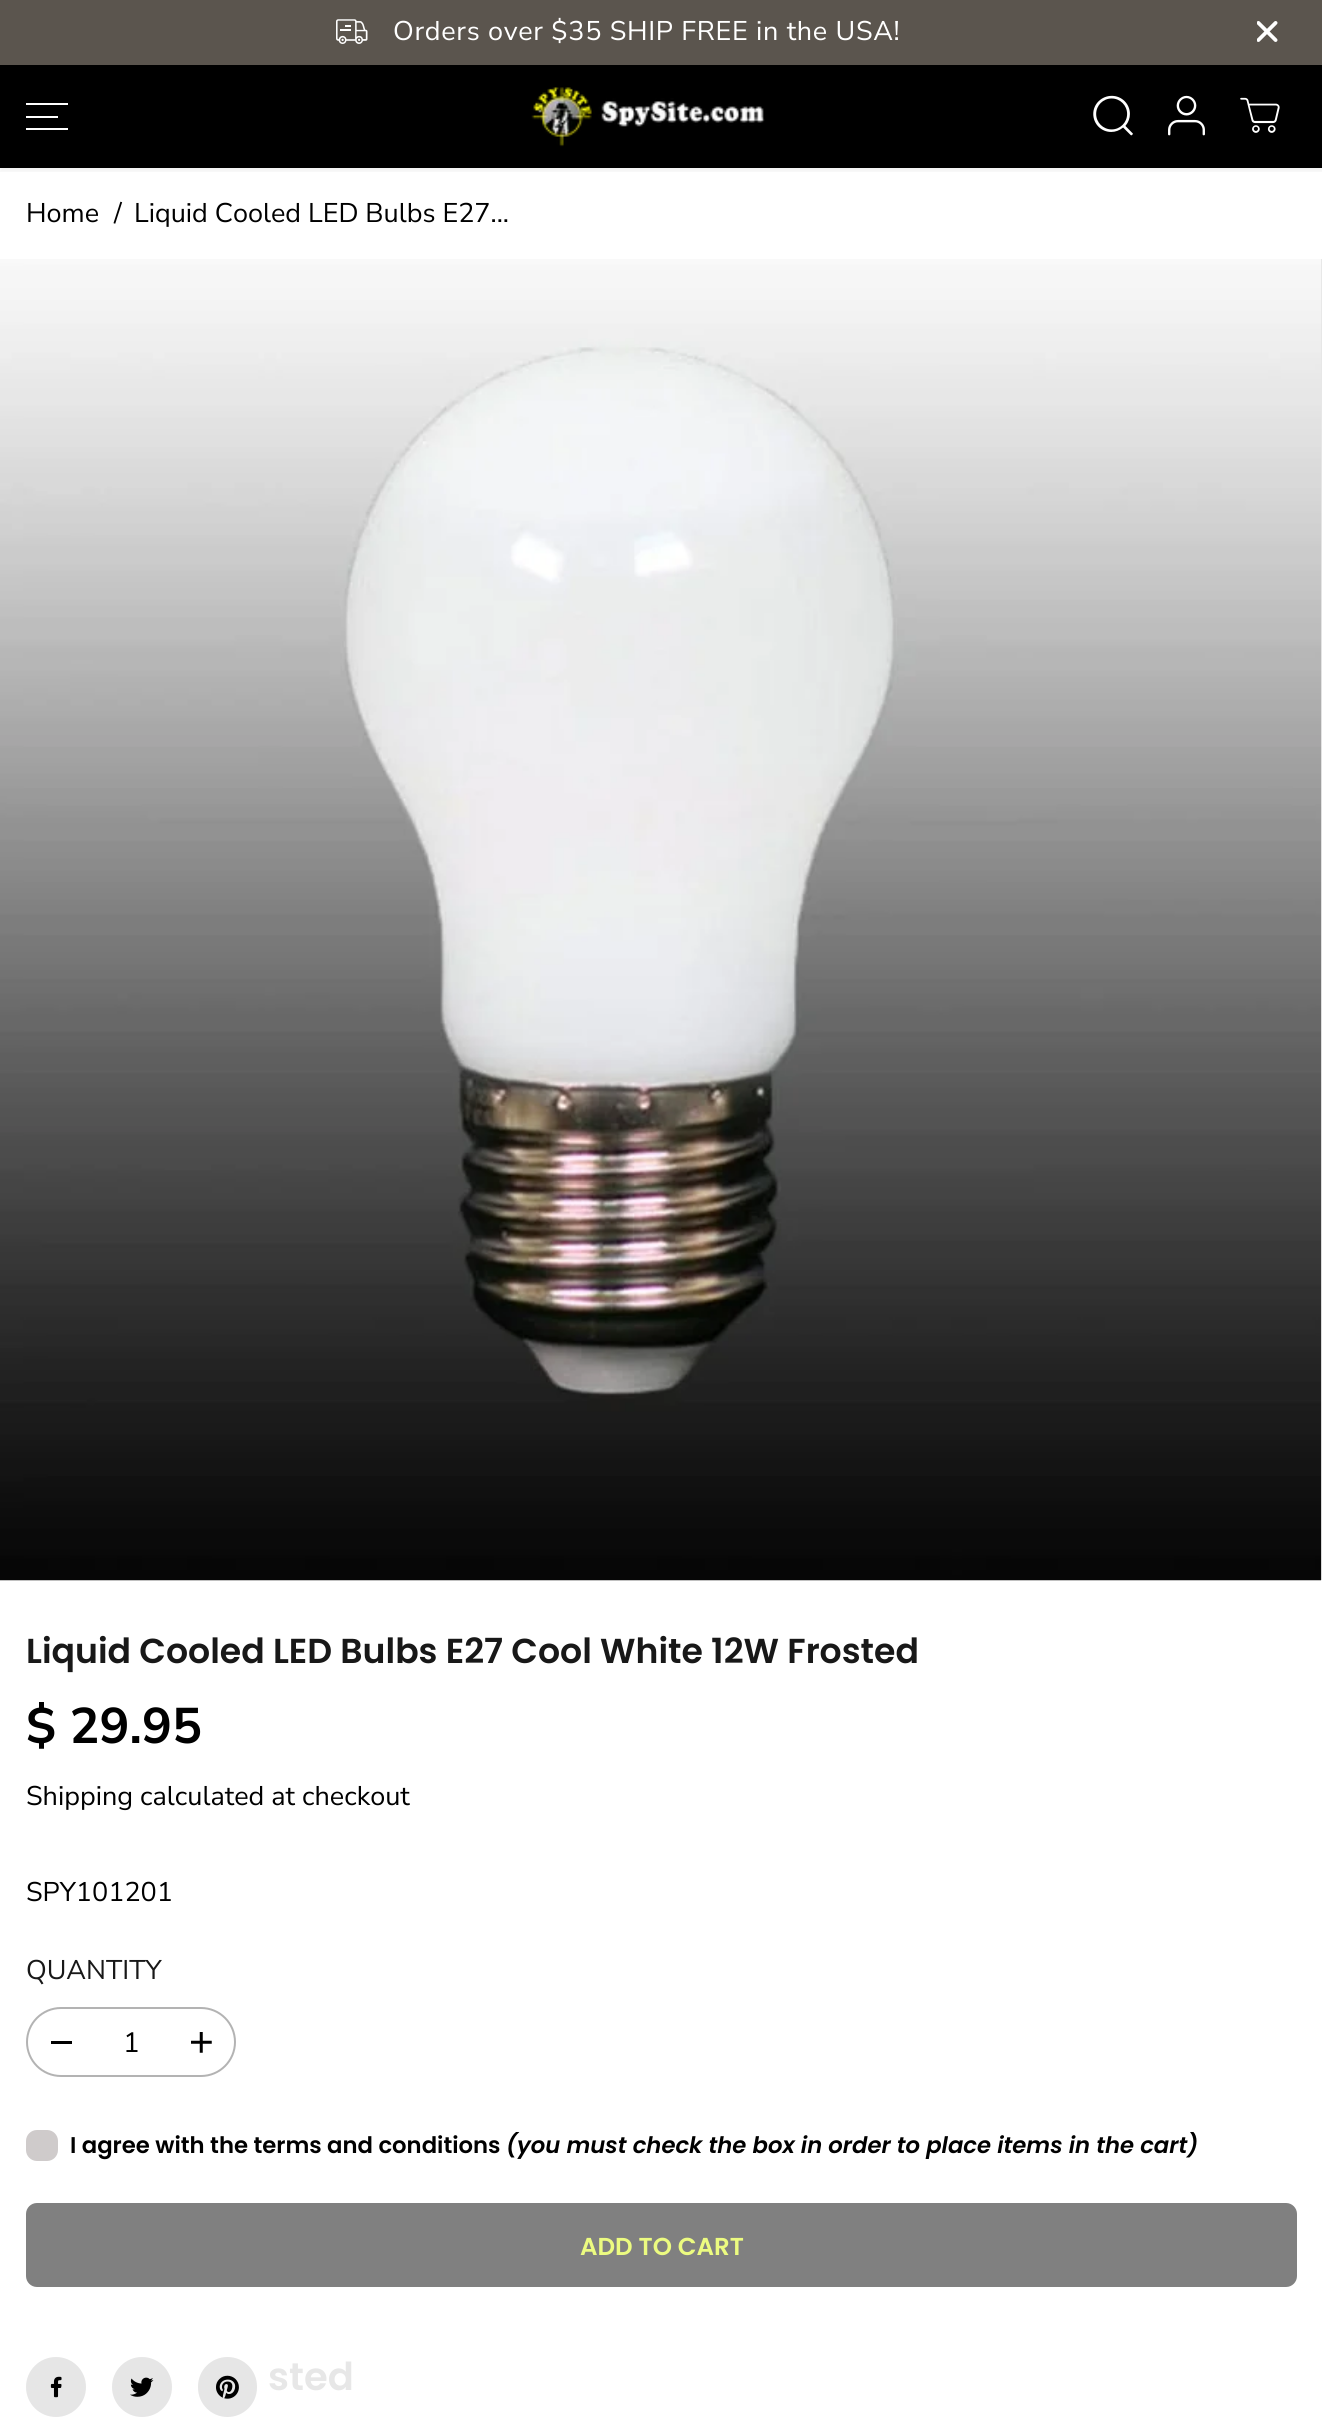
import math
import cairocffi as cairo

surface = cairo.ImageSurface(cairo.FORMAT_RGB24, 1322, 2426)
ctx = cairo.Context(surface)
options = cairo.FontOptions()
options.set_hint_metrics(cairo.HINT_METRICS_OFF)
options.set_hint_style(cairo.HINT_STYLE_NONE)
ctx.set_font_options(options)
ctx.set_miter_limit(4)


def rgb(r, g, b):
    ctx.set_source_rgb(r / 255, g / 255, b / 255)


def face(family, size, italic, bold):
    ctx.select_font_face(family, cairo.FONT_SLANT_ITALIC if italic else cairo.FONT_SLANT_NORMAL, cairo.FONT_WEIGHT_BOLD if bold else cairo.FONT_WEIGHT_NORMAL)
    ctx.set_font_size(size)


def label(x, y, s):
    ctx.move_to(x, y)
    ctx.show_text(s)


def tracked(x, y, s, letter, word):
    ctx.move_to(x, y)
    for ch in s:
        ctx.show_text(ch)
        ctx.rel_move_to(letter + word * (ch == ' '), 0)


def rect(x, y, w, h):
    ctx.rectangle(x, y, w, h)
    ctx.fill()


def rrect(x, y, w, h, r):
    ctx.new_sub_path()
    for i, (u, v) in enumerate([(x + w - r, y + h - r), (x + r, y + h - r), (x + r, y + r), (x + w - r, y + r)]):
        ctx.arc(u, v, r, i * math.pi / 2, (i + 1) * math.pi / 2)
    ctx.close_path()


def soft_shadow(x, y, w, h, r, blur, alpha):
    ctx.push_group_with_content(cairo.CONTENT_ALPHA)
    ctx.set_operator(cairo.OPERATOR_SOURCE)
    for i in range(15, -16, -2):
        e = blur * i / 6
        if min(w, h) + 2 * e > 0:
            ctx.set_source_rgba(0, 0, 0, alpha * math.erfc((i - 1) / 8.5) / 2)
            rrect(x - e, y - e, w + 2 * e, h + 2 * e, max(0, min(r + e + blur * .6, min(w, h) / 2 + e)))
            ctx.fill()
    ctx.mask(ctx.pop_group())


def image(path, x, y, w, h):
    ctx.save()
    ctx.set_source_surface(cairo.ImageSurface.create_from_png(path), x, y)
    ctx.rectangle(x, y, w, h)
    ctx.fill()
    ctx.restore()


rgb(255, 255, 255)
ctx.paint()
rgb(91, 85, 78)
rect(0, 0, 1322, 65)
image('image0.png', 336, 19, 32, 25)
face('Nunito Sans', 27, 0, 0)
rgb(255, 255, 255)
tracked(393, 40, 'Orders over $35 SHIP FREE in the USA!', 0.7, 0)
image('image1.png', 1257, 21, 21, 21)
rgb(0, 0, 0)
rect(0, 65, 1322, 103)
ctx.save()
ctx.rectangle(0, 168, 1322, 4)
ctx.clip()
rgb(0, 0, 0)
soft_shadow(0, 68, 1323, 104, 0, 2, 0.05)
ctx.restore()
rgb(255, 255, 255)
rect(26, 116, 32, 2)
rect(26, 103, 42, 2)
rect(26, 128, 42, 2)
image('image2.png', 531, 87, 234, 60)
image('image3.png', 1093, 95, 40, 41)
image('image4.png', 1168, 95, 37, 41)
image('image5.png', 1240, 97, 40, 36)
rgb(0, 0, 0)
label(26, 222, 'Home')
label(114, 222, '/')
label(134, 222, 'Liquid Cooled LED Bulbs E27...')
rgb(230, 230, 230)
rect(1321, 259, 1, 1321)
image('image6.png', 0, 259, 1322, 1322)
face('Poppins SemiBold', 34.65, 0, 0)
rgb(24, 24, 24)
label(26, 1663, 'Liquid Cooled LED Bulbs E27 Cool White 12W Frosted')
face('Nunito Sans', 50, 0, 1)
rgb(0, 0, 0)
label(26, 1743, '$ 29.95')
face('Nunito Sans', 27, 0, 0)
label(26, 1805, 'Shipping calculated at checkout')
label(26, 1901, 'SPY101201')
rgb(24, 24, 24)
label(26, 1979, 'QUANTITY')
rrect(27, 2008, 208, 68, 34)
rgb(179, 179, 179)
ctx.stroke()
rgb(0, 0, 0)
rect(51, 2041, 21, 3)
face('Nunito Sans', 28, 0, 0)
label(123, 2052, '1')
image('image7.png', 191, 2032, 21, 21)
rgb(207, 203, 203)
rrect(26, 2130, 32, 31, 11)
ctx.fill()
face('Poppins SemiBold', 22.75, 0, 0)
rgb(0, 0, 0)
label(70, 2153, 'I agree with the terms and conditions')
face('Poppins SemiBold', 22.75, 1, 0)
label(506, 2153, '(you must check the box in order to place items in the cart)')
rgb(128, 128, 128)
rrect(27, 2204, 1269, 82, 10)
ctx.fill_preserve()
ctx.stroke()
face('Poppins SemiBold', 24.5, 0, 0)
rgb(236, 251, 128)
label(580, 2255, 'ADD TO CART')
rgb(230, 230, 230)
ctx.new_path()
ctx.arc(56, 2387, 30, 0, 2 * math.pi)
ctx.fill()
image('image8.png', 50, 2376, 12, 22)
ctx.arc(142, 2387, 30, 0, 2 * math.pi)
ctx.fill()
image('image9.png', 130, 2377, 24, 20)
rrect(198, 2357, 59, 60, 29.5)
ctx.fill()
image('image10.png', 216, 2375, 23, 24)
face('Poppins SemiBold', 38.5, 0, 0)
rgb(231, 231, 231)
label(268, 2390, 'sted')
surface.write_to_png('render.png')
